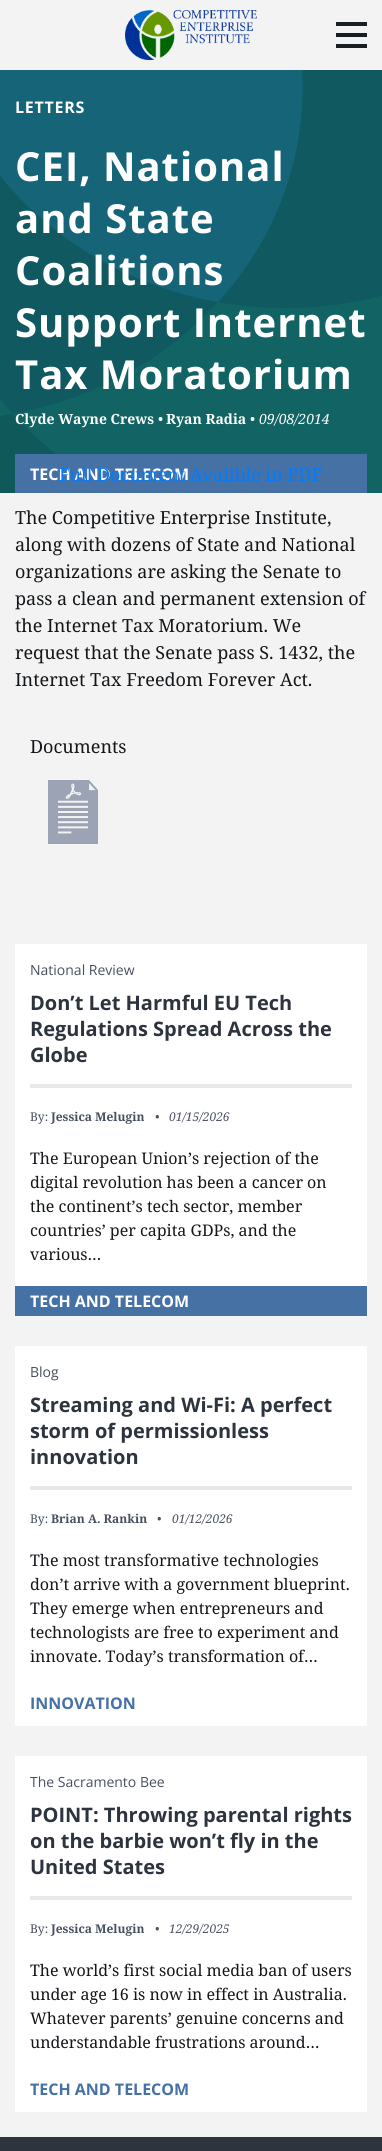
import math
import cairocffi as cairo

surface = cairo.ImageSurface(cairo.FORMAT_RGB24, 382, 2151)
ctx = cairo.Context(surface)
options = cairo.FontOptions()
options.set_hint_metrics(cairo.HINT_METRICS_OFF)
options.set_hint_style(cairo.HINT_STYLE_NONE)
ctx.set_font_options(options)
ctx.set_miter_limit(4)


def rgb(r, g, b):
    ctx.set_source_rgb(r / 255, g / 255, b / 255)


def face(family, size, italic, bold):
    ctx.select_font_face(family, cairo.FONT_SLANT_ITALIC if italic else cairo.FONT_SLANT_NORMAL, cairo.FONT_WEIGHT_BOLD if bold else cairo.FONT_WEIGHT_NORMAL)
    ctx.set_font_size(size)


def label(x, y, s):
    ctx.move_to(x, y)
    ctx.show_text(s)


def tracked(x, y, s, letter, word):
    ctx.move_to(x, y)
    for ch in s:
        ctx.show_text(ch)
        ctx.rel_move_to(letter + word * (ch == ' '), 0)


def rect(x, y, w, h):
    ctx.rectangle(x, y, w, h)
    ctx.fill()


def image(path, x, y, w, h):
    ctx.save()
    ctx.set_source_surface(cairo.ImageSurface.create_from_png(path), x, y)
    ctx.rectangle(x, y, w, h)
    ctx.fill()
    ctx.restore()


rgb(243, 243, 243)
ctx.paint()
image('image0.png', 125, 10, 132, 50)
rgb(25, 30, 34)
rect(336, 22, 31, 4)
rect(336, 33, 31, 4)
rect(336, 44, 31, 4)
rgb(0, 102, 102)
rect(0, 70, 382, 384)
image('image1.png', 0, 70, 382, 423)
face('Open Sans', 16, 0, 1)
rgb(255, 255, 255)
tracked(15, 113, 'LETTERS', 0.75, 0)
face('Noto Serif', 14, 0, 1)
label(15, 424, 'Clyde Wayne Crews')
face('Noto Serif', 14, 0, 0)
label(158, 424, '•')
face('Noto Serif', 14, 0, 1)
label(166, 424, 'Ryan Radia')
face('Noto Serif', 14, 0, 0)
label(250, 424, '•')
face('Noto Serif', 14, 1, 0)
label(259, 424, '09/08/2014')
rgb(70, 113, 165)
rect(15, 454, 352, 39)
face('Open Sans', 16, 0, 1)
rgb(255, 255, 255)
label(30, 480, 'TECH AND TELECOM')
face('Open Sans', 40, 0, 1)
tracked(15, 181, 'CEI, National', 1, 0)
tracked(15, 233, 'and State', 1, 0)
tracked(15, 285, 'Coalitions', 1, 0)
tracked(15, 337, 'Support Internet', 1, 0)
tracked(15, 389, 'Tax Moratorium', 1, 0)
face('Noto Serif', 18, 0, 0)
rgb(0, 123, 255)
label(59, 481, 'Full Document Avalible in PDF')
rgb(20, 23, 26)
label(15, 524, 'The Competitive Enterprise Institute,')
label(15, 551, 'along with dozens of State and National')
label(15, 578, 'organizations are asking the Senate to')
label(15, 605, 'pass a clean and permanent extension of')
label(15, 632, 'the Internet Tax Moratorium. We')
label(15, 659, 'request that the Senate pass S. 1432, the')
label(15, 686, 'Internet Tax Freedom Forever Act.')
label(30, 753, 'Documents')
image('image2.png', 48, 780, 50, 64)
rgb(255, 255, 255)
rect(15, 944, 352, 342)
face('Open Sans', 14, 0, 0)
rgb(72, 80, 95)
label(30, 975, 'National Review')
face('Open Sans', 20, 0, 1)
rgb(46, 52, 62)
label(30, 1010, 'Don’t Let Harmful EU Tech')
label(30, 1036, 'Regulations Spread Across the')
label(30, 1062, 'Globe')
rgb(232, 232, 232)
rect(30, 1084, 322, 4)
face('Noto Serif', 12, 0, 0)
rgb(72, 80, 95)
label(30, 1121, 'By:')
face('Noto Serif', 12, 0, 1)
label(51, 1121, 'Jessica Melugin')
face('Noto Serif', 12, 1, 0)
label(155, 1121, '•')
label(169, 1121, '01/15/2026')
face('Noto Serif', 16, 0, 0)
rgb(20, 23, 26)
label(30, 1164, 'The European Union’s rejection of the')
label(30, 1188, 'digital revolution has been a cancer on')
label(30, 1212, 'the continent’s tech sector, member')
label(30, 1236, 'countries’ per capita GDPs, and the')
label(30, 1260, 'various…')
rgb(70, 113, 165)
rect(15, 1286, 352, 30)
face('Open Sans', 16, 0, 1)
rgb(255, 255, 255)
label(30, 1307, 'TECH AND TELECOM')
rect(15, 1346, 352, 380)
face('Open Sans', 14, 0, 0)
rgb(72, 80, 95)
label(30, 1377, 'Blog')
face('Open Sans', 20, 0, 1)
rgb(46, 52, 62)
label(30, 1412, 'Streaming and Wi-Fi: A perfect')
label(30, 1438, 'storm of permissionless')
label(30, 1464, 'innovation')
rgb(232, 232, 232)
rect(30, 1486, 322, 4)
face('Noto Serif', 12, 0, 0)
rgb(72, 80, 95)
label(30, 1523, 'By:')
face('Noto Serif', 12, 0, 1)
label(51, 1523, 'Brian A. Rankin')
face('Noto Serif', 12, 1, 0)
label(157, 1523, '•')
label(172, 1523, '01/12/2026')
face('Noto Serif', 16, 0, 0)
rgb(20, 23, 26)
label(30, 1566, 'The most transformative technologies')
label(30, 1590, 'don’t arrive with a government blueprint.')
label(30, 1614, 'They emerge when entrepreneurs and')
label(30, 1638, 'technologists are free to experiment and')
label(30, 1662, 'innovate. Today’s transformation of…')
face('Open Sans', 16, 0, 1)
rgb(70, 113, 165)
label(30, 1709, 'INNOVATION')
rgb(255, 255, 255)
rect(15, 1756, 352, 356)
face('Open Sans', 14, 0, 0)
rgb(72, 80, 95)
label(30, 1787, 'The Sacramento Bee')
face('Open Sans', 20, 0, 1)
rgb(46, 52, 62)
label(30, 1822, 'POINT: Throwing parental rights')
label(30, 1848, 'on the barbie won’t fly in the')
label(30, 1874, 'United States')
rgb(232, 232, 232)
rect(30, 1896, 322, 4)
face('Noto Serif', 12, 0, 0)
rgb(72, 80, 95)
label(30, 1933, 'By:')
face('Noto Serif', 12, 0, 1)
label(51, 1933, 'Jessica Melugin')
face('Noto Serif', 12, 1, 0)
label(155, 1933, '•')
label(169, 1933, '12/29/2025')
face('Noto Serif', 16, 0, 0)
rgb(20, 23, 26)
label(30, 1976, 'The world’s first social media ban of users')
label(30, 2000, 'under age 16 is now in effect in Australia.')
label(30, 2024, 'Whatever parents’ genuine concerns and')
label(30, 2048, 'understandable frustrations around…')
face('Open Sans', 16, 0, 1)
rgb(70, 113, 165)
label(30, 2095, 'TECH AND TELECOM')
rgb(46, 52, 62)
rect(0, 2137, 382, 14)
surface.write_to_png('render.png')
